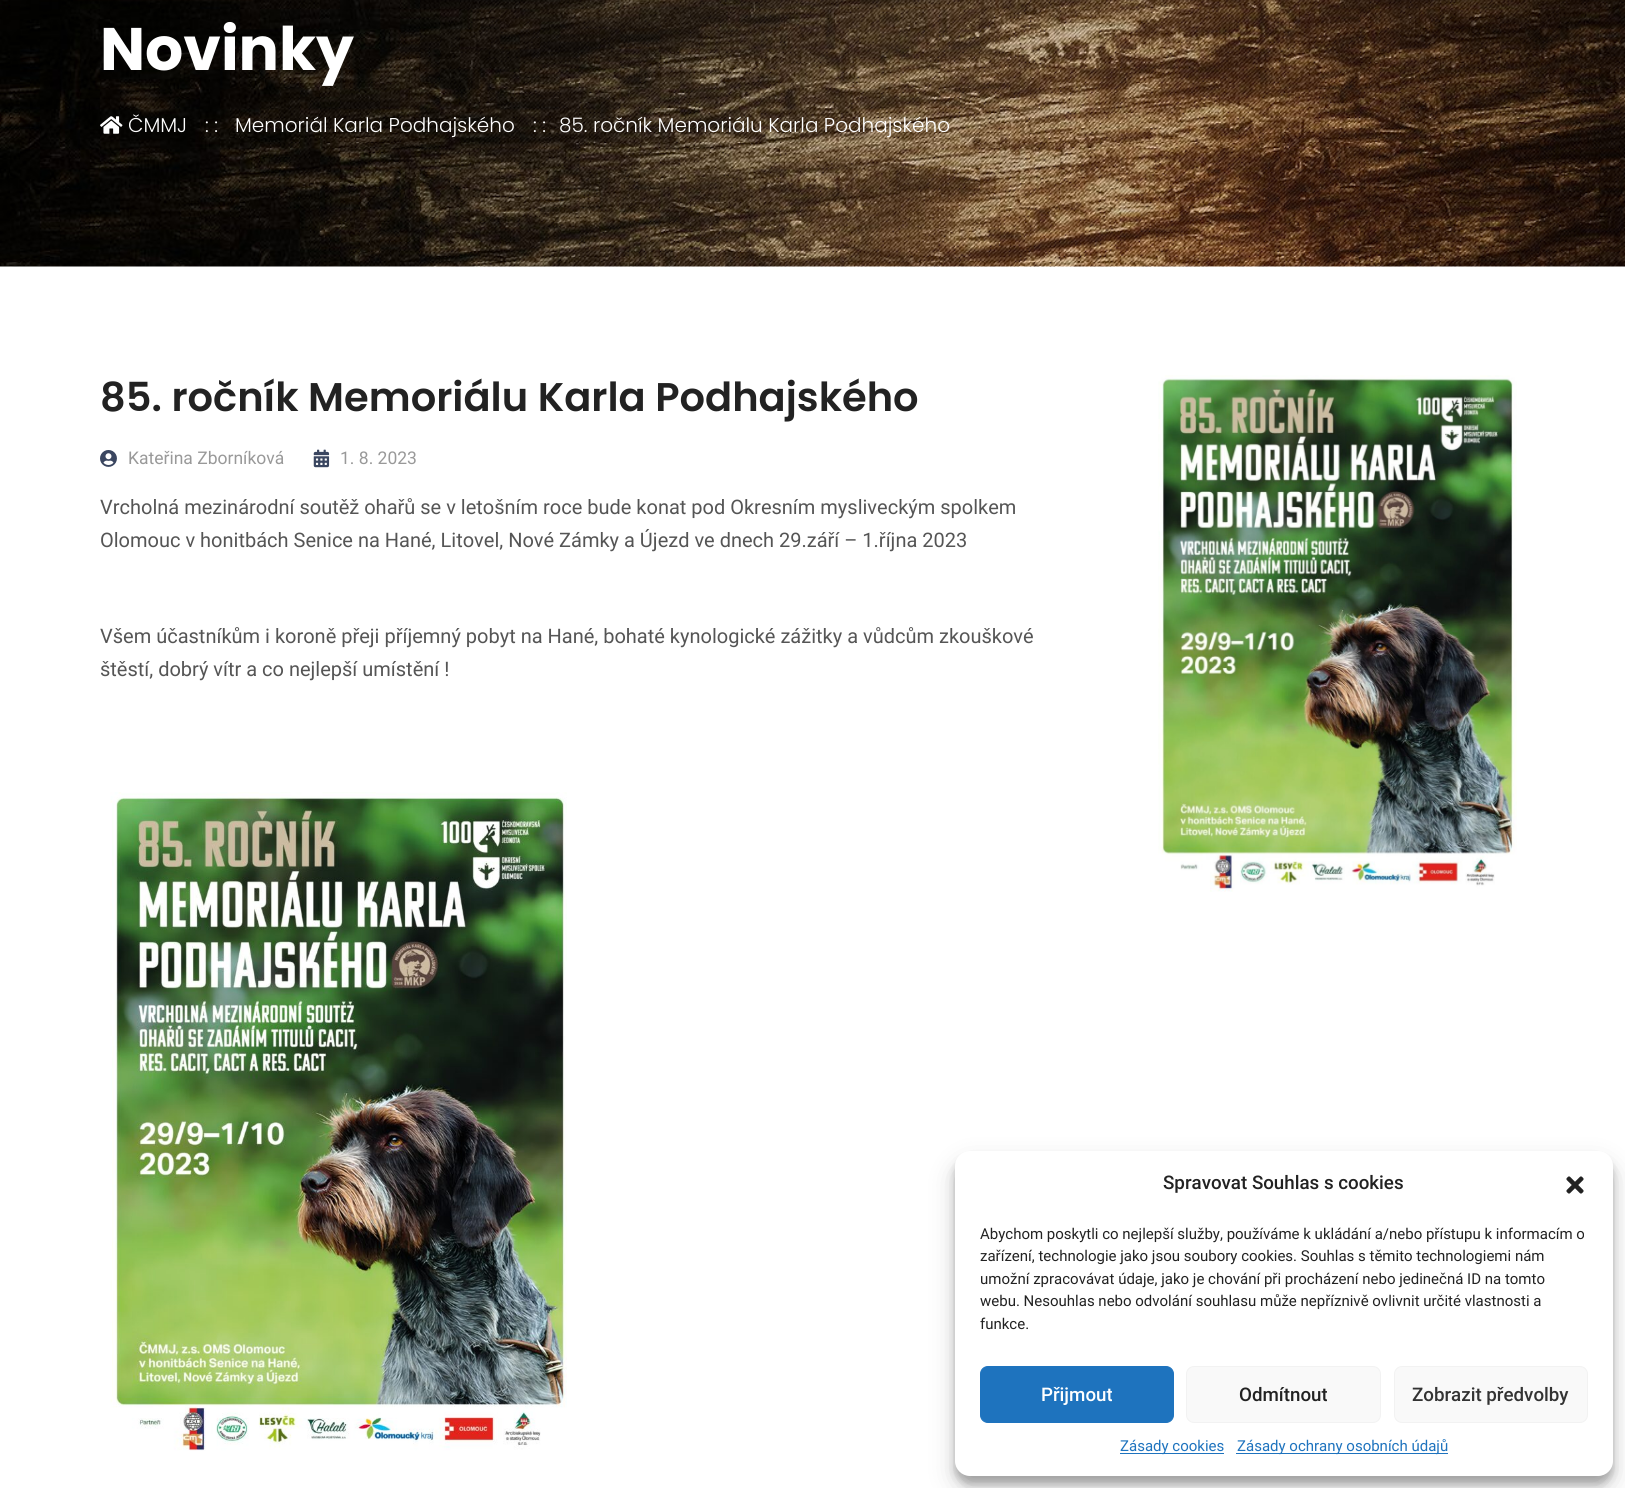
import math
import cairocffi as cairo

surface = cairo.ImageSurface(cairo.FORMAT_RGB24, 1625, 1488)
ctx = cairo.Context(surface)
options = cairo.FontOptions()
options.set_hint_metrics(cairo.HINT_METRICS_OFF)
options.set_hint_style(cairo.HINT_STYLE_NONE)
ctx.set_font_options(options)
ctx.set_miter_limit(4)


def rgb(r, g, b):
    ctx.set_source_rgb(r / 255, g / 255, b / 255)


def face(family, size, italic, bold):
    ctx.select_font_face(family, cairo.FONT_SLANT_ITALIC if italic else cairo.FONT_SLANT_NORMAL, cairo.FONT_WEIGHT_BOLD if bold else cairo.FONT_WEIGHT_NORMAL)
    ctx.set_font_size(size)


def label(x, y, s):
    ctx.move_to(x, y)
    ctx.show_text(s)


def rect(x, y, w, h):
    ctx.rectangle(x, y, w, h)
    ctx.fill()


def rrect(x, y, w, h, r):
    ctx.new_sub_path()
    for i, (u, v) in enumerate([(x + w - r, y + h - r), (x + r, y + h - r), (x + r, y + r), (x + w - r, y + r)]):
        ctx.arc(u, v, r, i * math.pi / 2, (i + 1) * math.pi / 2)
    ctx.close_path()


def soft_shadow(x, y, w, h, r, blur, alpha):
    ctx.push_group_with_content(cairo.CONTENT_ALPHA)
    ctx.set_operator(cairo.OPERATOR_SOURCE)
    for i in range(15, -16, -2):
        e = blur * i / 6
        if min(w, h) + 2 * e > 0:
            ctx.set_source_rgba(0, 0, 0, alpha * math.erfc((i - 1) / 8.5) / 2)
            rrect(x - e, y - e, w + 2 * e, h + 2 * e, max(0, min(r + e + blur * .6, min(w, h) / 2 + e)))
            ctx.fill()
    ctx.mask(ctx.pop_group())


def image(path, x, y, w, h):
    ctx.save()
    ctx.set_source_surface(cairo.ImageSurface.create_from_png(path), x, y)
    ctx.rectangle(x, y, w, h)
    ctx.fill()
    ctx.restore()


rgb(255, 255, 255)
ctx.paint()
image('image0.png', 0, 0, 1625, 267)
face('Poppins', 60, 0, 1)
rgb(255, 255, 255)
label(100, 70, 'Novinky')
image('image1.png', 100, 116, 23, 18)
face('Poppins Light', 20, 0, 0)
label(128, 132, 'ČMMJ')
label(205, 132, ': :')
label(235, 132, 'Memoriál Karla Podhajského')
label(533, 132, ': :')
label(559, 132, '85. ročník Memoriálu Karla Podhajského')
face('Poppins SemiBold', 40, 0, 0)
rgb(34, 34, 34)
label(100, 411, '85. ročník Memoriálu Karla Podhajského')
image('image2.png', 100, 450, 17, 17)
face('Roboto', 17.5, 0, 0)
rgb(153, 153, 153)
label(128, 464, 'Kateřina Zborníková')
image('image3.png', 313, 449, 17, 19)
label(340, 464, '1. 8. 2023')
face('Roboto', 20, 0, 0)
rgb(85, 85, 85)
label(100, 514, 'Vrcholná mezinárodní soutěž ohařů se v letošním roce bude konat pod Okresním mysliveckým spolkem')
label(100, 547, 'Olomouc v honitbách Senice na Hané, Litovel, Nové Zámky a Újezd ve dnech 29.září – 1.října 2023')
label(100, 643, 'Všem účastníkům i koroně přeji příjemný pobyt na Hané, bohaté kynologické zážitky a vůdcům zkouškové')
label(100, 676, 'štěstí, dobrý vítr a co nejlepší umístění !')
image('image4.png', 110, 792, 457, 659)
image('image5.png', 1158, 375, 359, 517)
rgb(0, 0, 0)
soft_shadow(955, 1159, 658, 325, 15, 4, 0.23)
soft_shadow(955, 1164, 658, 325, 15, 12.5, 0.19)
rgb(255, 255, 255)
rrect(955, 1151, 658, 325, 15)
ctx.fill()
face('Roboto Medium', 18.75, 0, 0)
rgb(34, 34, 34)
label(1163, 1189, 'Spravovat Souhlas s cookies')
image('image6.png', 1566, 1176, 18, 18)
face('Roboto', 15, 0, 0)
label(980, 1239, 'Abychom poskytli co nejlepší služby, používáme k ukládání a/nebo přístupu k informacím o')
label(980, 1261, 'zařízení, technologie jako jsou soubory cookies. Souhlas s těmito technologiemi nám')
label(980, 1284, 'umožní zpracovávat údaje, jako je chování při procházení nebo jedinečná ID na tomto')
label(980, 1306, 'webu. Nesouhlas nebo odvolání souhlasu může nepříznivě ovlivnit určité vlastnosti a')
label(980, 1329, 'funkce.')
rgb(30, 115, 190)
rrect(980.5, 1366.5, 193, 56, 7.5)
ctx.fill_preserve()
ctx.set_line_width(1)
ctx.stroke()
face('Roboto Medium', 18.75, 0, 0)
rgb(255, 255, 255)
label(1041, 1401, 'Přijmout')
rgb(249, 249, 249)
rrect(1186.5, 1366.5, 194, 56, 7.5)
ctx.fill_preserve()
rgb(242, 242, 242)
ctx.stroke()
rgb(34, 34, 34)
label(1239, 1401, 'Odmítnout')
rgb(249, 249, 249)
rrect(1394.5, 1366.5, 193, 56, 7.5)
ctx.fill_preserve()
rgb(242, 242, 242)
ctx.stroke()
rgb(51, 51, 51)
label(1412, 1401, 'Zobrazit předvolby')
rgb(30, 115, 190)
rect(1120, 1453, 104, 1)
face('Roboto', 15, 0, 0)
label(1120, 1451, 'Zásady cookies')
rect(1236, 1453, 212, 1)
label(1237, 1451, 'Zásady ochrany osobních údajů')
surface.write_to_png('render.png')
